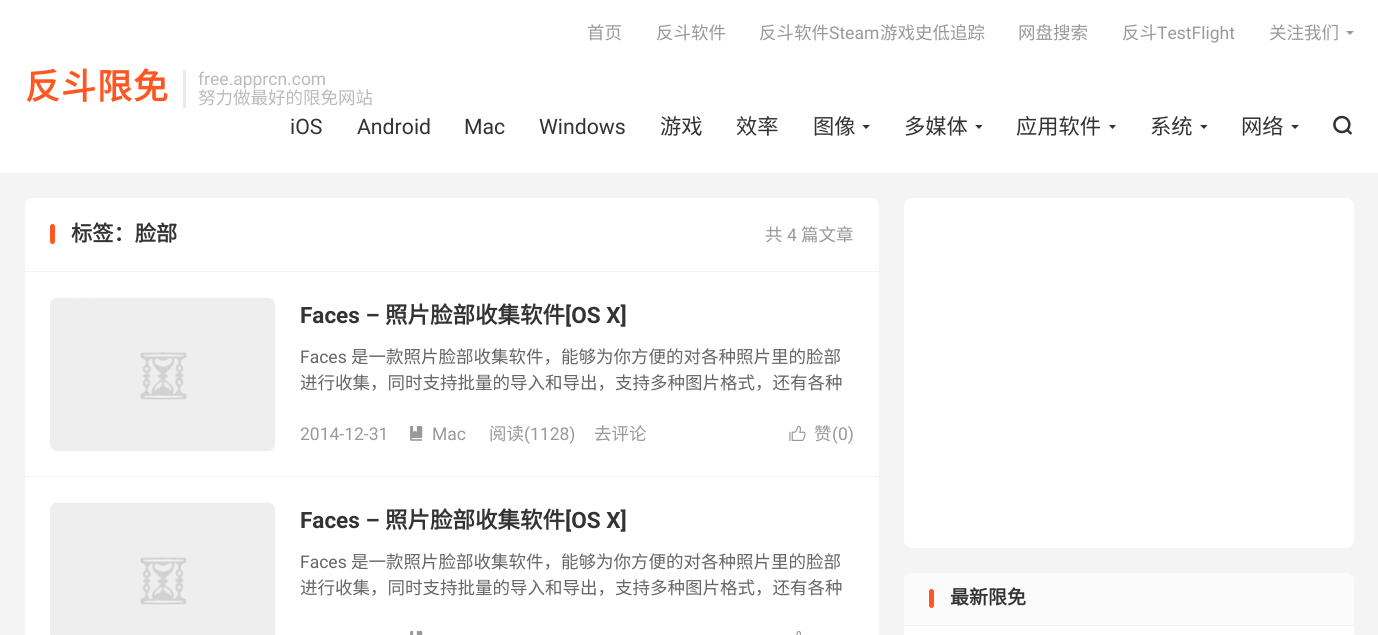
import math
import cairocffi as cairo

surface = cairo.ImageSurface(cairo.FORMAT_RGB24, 1378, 635)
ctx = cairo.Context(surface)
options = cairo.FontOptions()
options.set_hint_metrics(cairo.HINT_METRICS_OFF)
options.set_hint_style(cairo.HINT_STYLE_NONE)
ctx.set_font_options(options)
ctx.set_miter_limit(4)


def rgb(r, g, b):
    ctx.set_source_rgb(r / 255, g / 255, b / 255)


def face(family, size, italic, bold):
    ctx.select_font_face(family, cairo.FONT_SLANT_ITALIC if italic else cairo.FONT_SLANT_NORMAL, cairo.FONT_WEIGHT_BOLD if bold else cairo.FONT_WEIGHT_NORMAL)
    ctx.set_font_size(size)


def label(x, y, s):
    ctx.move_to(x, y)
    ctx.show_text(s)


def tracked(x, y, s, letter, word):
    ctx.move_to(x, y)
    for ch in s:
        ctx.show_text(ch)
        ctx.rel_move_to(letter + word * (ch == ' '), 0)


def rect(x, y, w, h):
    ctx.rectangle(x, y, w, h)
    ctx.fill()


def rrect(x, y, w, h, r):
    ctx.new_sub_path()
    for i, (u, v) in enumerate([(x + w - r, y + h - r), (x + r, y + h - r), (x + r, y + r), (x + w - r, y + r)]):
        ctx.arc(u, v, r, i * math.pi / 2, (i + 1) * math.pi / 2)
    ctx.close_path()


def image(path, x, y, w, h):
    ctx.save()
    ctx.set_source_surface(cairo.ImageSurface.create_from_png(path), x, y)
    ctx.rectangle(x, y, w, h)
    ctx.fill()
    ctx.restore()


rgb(244, 244, 244)
ctx.paint()
rgb(255, 255, 255)
rect(0, 0, 1378, 173)
face('Noto Sans CJK SC', 17.5, 0, 0)
rgb(153, 153, 153)
label(587, 39, '首页')
label(656, 39, '反斗软件')
label(759, 39, '反斗软件')
face('Roboto', 17.5, 0, 0)
label(829, 39, 'Steam')
face('Noto Sans CJK SC', 17.5, 0, 0)
label(880, 39, '游戏史低追踪')
label(1018, 39, '网盘搜索')
label(1122, 39, '反斗')
face('Roboto', 17.5, 0, 0)
label(1157, 39, 'TestFlight')
face('Noto Sans CJK SC', 17.5, 0, 0)
label(1269, 39, '关注我们')
ctx.new_path()
ctx.move_to(1346, 31)
ctx.line_to(1354, 31)
ctx.line_to(1350, 35)
ctx.close_path()
ctx.fill()
face('Noto Sans CJK SC', 35, 0, 1)
rgb(255, 87, 34)
tracked(25, 99, '反斗限免', 1, 0)
rgb(234, 234, 234)
rect(183, 70, 3, 38)
face('Roboto', 17.5, 0, 0)
rgb(187, 187, 187)
label(198, 85, 'free.apprcn.com')
face('Noto Sans CJK SC', 17.5, 0, 0)
label(198, 104, '努力做最好的限免网站')
face('Roboto', 21.25, 0, 0)
rgb(51, 51, 51)
label(290, 134, 'iOS')
label(357, 134, 'Android')
label(464, 134, 'Mac')
label(539, 134, 'Windows')
face('Noto Sans CJK SC', 21.25, 0, 0)
label(660, 134, '游戏')
label(736, 134, '效率')
label(813, 134, '图像')
ctx.new_path()
ctx.move_to(862.5, 125)
ctx.line_to(870, 125)
ctx.line_to(866, 129)
ctx.close_path()
ctx.fill()
label(904, 134, '多媒体')
ctx.new_path()
ctx.move_to(975, 125)
ctx.line_to(982.5, 125)
ctx.line_to(979, 129)
ctx.close_path()
ctx.fill()
label(1016, 134, '应用软件')
ctx.new_path()
ctx.move_to(1109, 125)
ctx.line_to(1116, 125)
ctx.line_to(1112.5, 129)
ctx.close_path()
ctx.fill()
label(1150, 134, '系统')
ctx.new_path()
ctx.move_to(1200, 125)
ctx.line_to(1207.5, 125)
ctx.line_to(1204, 129)
ctx.close_path()
ctx.fill()
label(1241, 134, '网络')
ctx.new_path()
ctx.move_to(1291, 125)
ctx.line_to(1299, 125)
ctx.line_to(1295, 129)
ctx.close_path()
ctx.fill()
image('image0.png', 1333, 115, 19, 20)
rgb(255, 255, 255)
ctx.new_path()
ctx.move_to(33, 198)
ctx.line_to(871, 198)
ctx.curve_to(875.5, 198, 879, 201.5, 879, 206)
ctx.line_to(879, 273)
ctx.line_to(25, 273)
ctx.line_to(25, 206)
ctx.curve_to(25, 201.5, 28.5, 198, 33, 198)
ctx.close_path()
ctx.fill()
rgb(243, 243, 243)
rect(25, 271, 854, 1)
rgb(255, 87, 34)
rrect(50, 224, 5, 20, 2.5)
ctx.fill()
face('Noto Sans CJK SC', 21.25, 0, 1)
rgb(51, 51, 51)
label(71, 241, '标签：脸部')
face('Noto Sans CJK SC', 17.5, 0, 0)
rgb(153, 153, 153)
label(765, 241, '共')
face('Roboto', 17.5, 0, 0)
label(787, 241, '4')
face('Noto Sans CJK SC', 17.5, 0, 0)
label(801, 241, '篇文章')
rgb(255, 255, 255)
rect(25, 273, 854, 362)
rgb(243, 243, 243)
rect(25, 476, 854, 1)
image('image1.png', 50, 297, 225, 154)
face('Roboto', 22.5, 0, 1)
rgb(51, 51, 51)
label(300, 323, 'Faces –')
face('Noto Sans CJK SC', 22.5, 0, 1)
label(385, 323, '照片脸部收集软件')
face('Roboto', 22.5, 0, 1)
label(565, 323, '[OS X]')
face('Roboto', 17.5, 0, 0)
rgb(102, 102, 102)
label(300, 363, 'Faces')
face('Noto Sans CJK SC', 17.5, 0, 0)
label(351, 363, '是一款照片脸部收集软件，能够为你方便的对各种照片里的脸部')
label(300, 389, '进行收集，同时支持批量的导入和导出，支持多种图片格式，还有各种')
face('Roboto', 17.5, 0, 0)
rgb(153, 153, 153)
label(300, 440, '2014-12-31')
image('image2.png', 410, 426, 13, 15)
label(432, 440, 'Mac')
face('Noto Sans CJK SC', 17.5, 0, 0)
label(489, 440, '阅读')
face('Roboto', 17.5, 0, 0)
label(524, 440, '(1128)')
face('Noto Sans CJK SC', 17.5, 0, 0)
label(594, 440, '去评论')
image('image3.png', 789, 425, 17, 16)
label(814, 440, '赞')
face('Roboto', 17.5, 0, 0)
label(832, 440, '(0)')
image('image4.png', 50, 502, 225, 133)
face('Roboto', 22.5, 0, 1)
rgb(51, 51, 51)
label(300, 528, 'Faces –')
face('Noto Sans CJK SC', 22.5, 0, 1)
label(385, 528, '照片脸部收集软件')
face('Roboto', 22.5, 0, 1)
label(565, 528, '[OS X]')
face('Roboto', 17.5, 0, 0)
rgb(102, 102, 102)
label(300, 568, 'Faces')
face('Noto Sans CJK SC', 17.5, 0, 0)
label(351, 568, '是一款照片脸部收集软件，能够为你方便的对各种照片里的脸部')
label(300, 594, '进行收集，同时支持批量的导入和导出，支持多种图片格式，还有各种')
image('image5.png', 410, 631, 13, 4)
image('image6.png', 796, 630, 5, 5)
rgb(255, 255, 255)
rrect(904, 198, 450, 350, 8)
ctx.fill()
rrect(904, 573, 450, 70, 8)
ctx.fill()
rgb(251, 251, 251)
ctx.new_path()
ctx.move_to(912, 573)
ctx.line_to(1346, 573)
ctx.curve_to(1350.5, 573, 1354, 576.5, 1354, 581)
ctx.line_to(1354, 626)
ctx.line_to(904, 626)
ctx.line_to(904, 581)
ctx.curve_to(904, 576.5, 907.5, 573, 912, 573)
ctx.close_path()
ctx.fill()
rgb(243, 243, 243)
rect(904, 625, 450, 1)
rgb(255, 87, 34)
rrect(929, 589, 5, 19, 2.5)
ctx.fill()
face('Noto Sans CJK SC', 19, 0, 1)
rgb(51, 51, 51)
label(950, 604, '最新限免')
surface.write_to_png('render.png')
